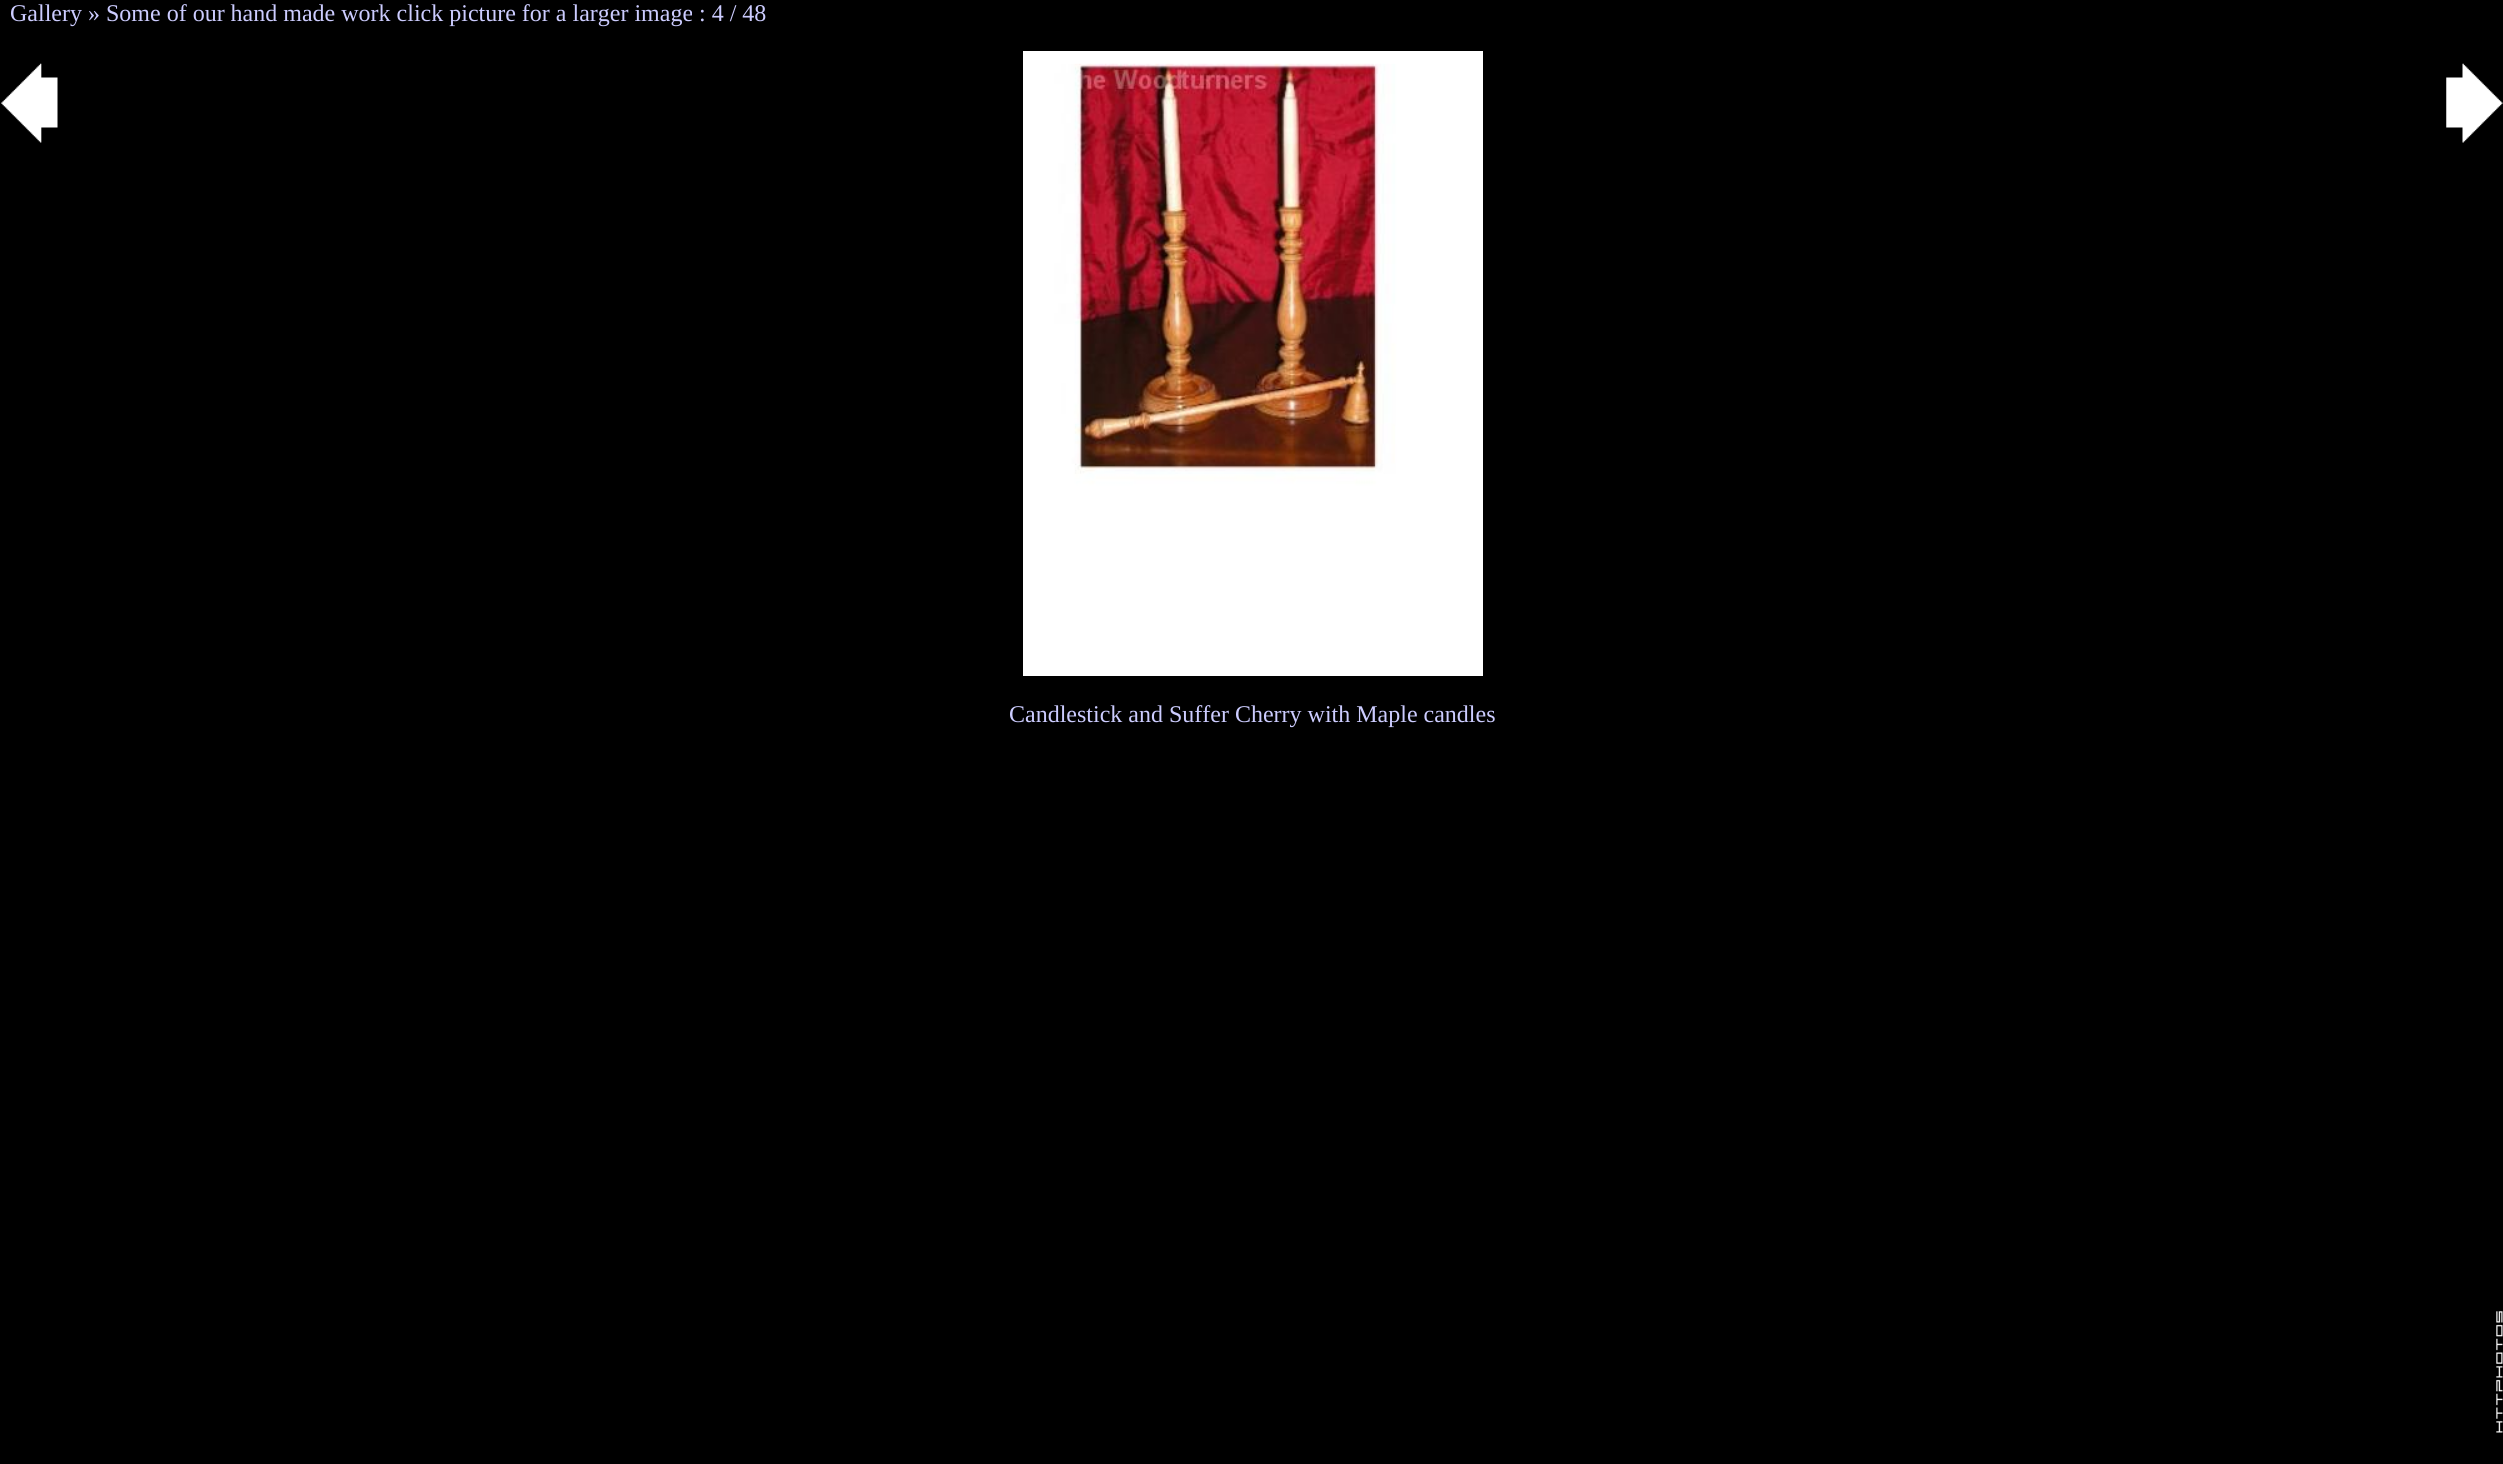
import math
import cairocffi as cairo

surface = cairo.ImageSurface(cairo.FORMAT_RGB24, 2503, 1464)
ctx = cairo.Context(surface)
options = cairo.FontOptions()
options.set_hint_metrics(cairo.HINT_METRICS_OFF)
options.set_hint_style(cairo.HINT_STYLE_NONE)
ctx.set_font_options(options)
ctx.set_miter_limit(4)


def rgb(r, g, b):
    ctx.set_source_rgb(r / 255, g / 255, b / 255)


def face(family, size, italic, bold):
    ctx.select_font_face(family, cairo.FONT_SLANT_ITALIC if italic else cairo.FONT_SLANT_NORMAL, cairo.FONT_WEIGHT_BOLD if bold else cairo.FONT_WEIGHT_NORMAL)
    ctx.set_font_size(size)


def label(x, y, s):
    ctx.move_to(x, y)
    ctx.show_text(s)


def image(path, x, y, w, h):
    ctx.save()
    ctx.set_source_surface(cairo.ImageSurface.create_from_png(path), x, y)
    ctx.rectangle(x, y, w, h)
    ctx.fill()
    ctx.restore()


rgb(0, 0, 0)
ctx.paint()
face('Liberation Serif', 24, 0, 0)
rgb(204, 204, 255)
label(10, 21, 'Gallery » Some of our hand made work click picture for a larger image')
label(699, 21, ': 4 / 48')
image('image0.png', 1, 63, 57, 80)
ctx.rectangle(1029.5, 57.5, 447, 612)
rgb(255, 255, 255)
ctx.set_line_width(13)
ctx.stroke()
image('image1.png', 1036, 63, 434, 600)
image('image2.png', 2446, 63, 57, 80)
rgb(204, 204, 255)
label(1009, 722, 'Candlestick and Suffer Cherry with Maple candles')
image('image3.png', 2496, 1311, 7, 122)
surface.write_to_png('render.png')
